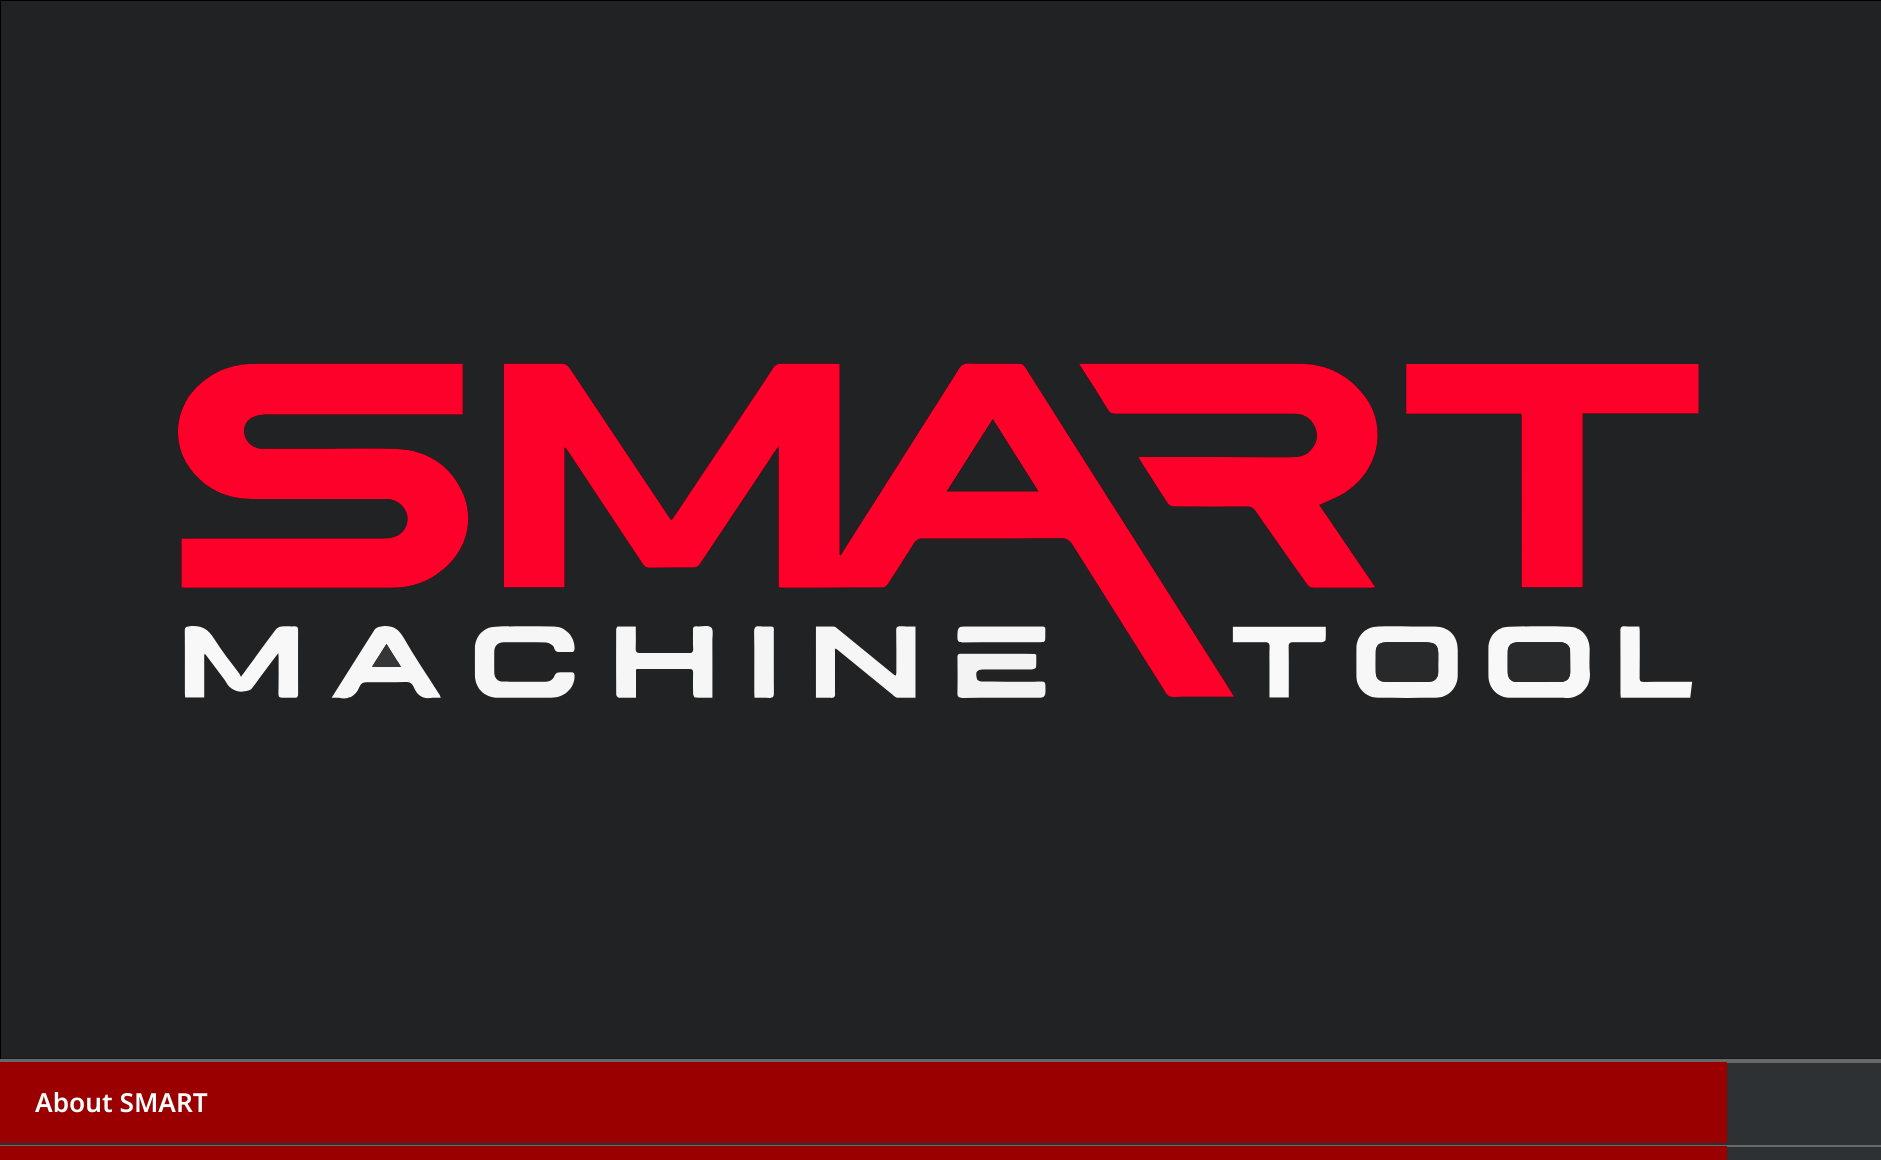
import math
import cairocffi as cairo

surface = cairo.ImageSurface(cairo.FORMAT_RGB24, 1881, 1160)
ctx = cairo.Context(surface)
options = cairo.FontOptions()
options.set_hint_metrics(cairo.HINT_METRICS_OFF)
options.set_hint_style(cairo.HINT_STYLE_NONE)
ctx.set_font_options(options)
ctx.set_miter_limit(4)


def rgb(r, g, b):
    ctx.set_source_rgb(r / 255, g / 255, b / 255)


def face(family, size, italic, bold):
    ctx.select_font_face(family, cairo.FONT_SLANT_ITALIC if italic else cairo.FONT_SLANT_NORMAL, cairo.FONT_WEIGHT_BOLD if bold else cairo.FONT_WEIGHT_NORMAL)
    ctx.set_font_size(size)


def label(x, y, s):
    ctx.move_to(x, y)
    ctx.show_text(s)


def rect(x, y, w, h):
    ctx.rectangle(x, y, w, h)
    ctx.fill()


def image(path, x, y, w, h):
    ctx.save()
    ctx.set_source_surface(cairo.ImageSurface.create_from_png(path), x, y)
    ctx.rectangle(x, y, w, h)
    ctx.fill()
    ctx.restore()


rgb(0, 0, 0)
ctx.paint()
rgb(105, 105, 105)
rect(0, 1059, 1881, 4)
image('image0.png', 1, 1, 1880, 1058)
rgb(46, 49, 51)
rect(0, 1063, 1881, 82)
rgb(154, 0, 0)
rect(0, 1062, 1727, 81)
face('Noto Sans SemiBold', 26.25, 0, 0)
rgb(255, 255, 255)
label(35, 1112, 'About SMART')
rgb(46, 49, 51)
rect(1727, 1147, 154, 13)
rgb(105, 105, 105)
rect(0, 1145, 1881, 2)
rgb(154, 0, 0)
rect(0, 1146, 1727, 14)
surface.write_to_png('render.png')
